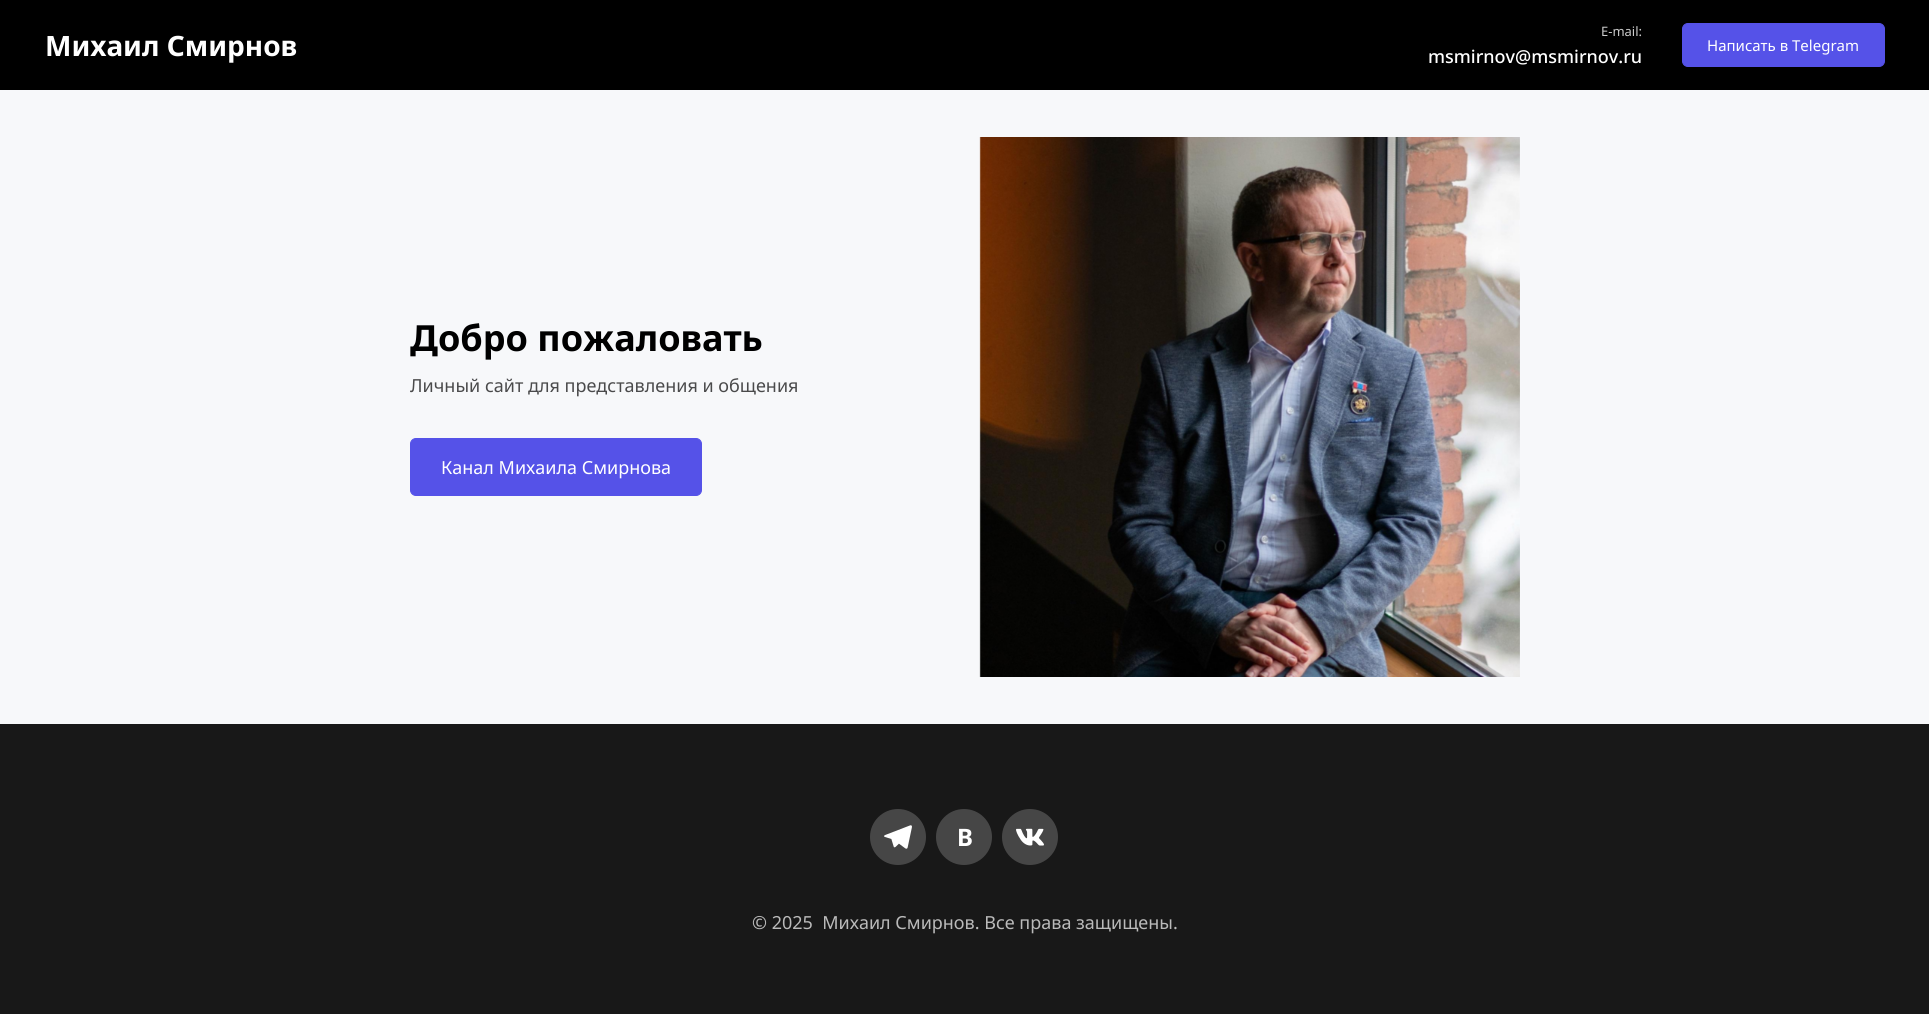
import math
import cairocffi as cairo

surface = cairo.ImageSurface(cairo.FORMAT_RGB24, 1929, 1026)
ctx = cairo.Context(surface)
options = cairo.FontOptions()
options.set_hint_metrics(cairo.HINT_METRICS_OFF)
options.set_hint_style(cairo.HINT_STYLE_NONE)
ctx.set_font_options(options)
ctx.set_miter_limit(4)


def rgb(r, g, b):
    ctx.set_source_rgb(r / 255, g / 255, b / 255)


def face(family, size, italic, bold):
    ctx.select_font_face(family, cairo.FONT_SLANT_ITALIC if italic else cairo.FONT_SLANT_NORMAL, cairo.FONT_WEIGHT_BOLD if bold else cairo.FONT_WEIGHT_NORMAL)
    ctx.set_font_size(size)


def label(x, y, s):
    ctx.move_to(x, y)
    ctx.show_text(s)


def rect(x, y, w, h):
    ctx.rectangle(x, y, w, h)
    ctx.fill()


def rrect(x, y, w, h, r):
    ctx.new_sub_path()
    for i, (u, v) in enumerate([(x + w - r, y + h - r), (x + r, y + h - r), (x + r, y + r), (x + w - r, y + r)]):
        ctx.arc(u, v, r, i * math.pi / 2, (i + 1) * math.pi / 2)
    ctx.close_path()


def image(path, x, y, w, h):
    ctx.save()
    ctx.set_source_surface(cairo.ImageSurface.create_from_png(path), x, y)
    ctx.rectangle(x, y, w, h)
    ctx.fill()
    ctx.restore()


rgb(255, 255, 255)
ctx.paint()
rgb(0, 0, 0)
rect(0, 0, 1929, 90)
face('Noto Sans', 28, 0, 1)
rgb(255, 255, 255)
label(45, 56, 'Михаил Смирнов')
face('Noto Sans', 13, 0, 0)
rgb(204, 204, 204)
label(1601, 36, 'E-mail:')
face('Noto Sans Medium', 18, 0, 0)
rgb(255, 255, 255)
label(1428, 63, 'msmirnov@msmirnov.ru')
rgb(85, 82, 232)
rrect(1682.5, 23.5, 202, 43, 5.5)
ctx.fill_preserve()
ctx.set_line_width(1)
ctx.stroke()
face('Noto Sans', 15, 0, 0)
rgb(255, 255, 255)
label(1707, 51, 'Написать в Telegram')
rgb(247, 248, 250)
rect(0, 90, 1929, 634)
face('Noto Sans', 36, 0, 1)
rgb(0, 0, 0)
label(410, 351, 'Добро пожаловать')
face('Noto Sans', 18, 0, 0)
rgb(74, 74, 75)
label(410, 392, 'Личный сайт для представления и общения')
rgb(85, 82, 232)
rrect(410.5, 438.5, 291, 57, 5.5)
ctx.fill_preserve()
ctx.stroke()
rgb(255, 255, 255)
label(441, 474, 'Канал Михаила Смирнова')
image('image0.png', 979, 137, 541, 540)
rgb(24, 24, 24)
rect(0, 724, 1929, 290)
rgb(70, 70, 70)
ctx.arc(898, 837, 28, 0, 2 * math.pi)
ctx.fill()
image('image1.png', 884, 825, 28, 24)
ctx.arc(964, 837, 28, 0, 2 * math.pi)
ctx.fill()
face('Noto Sans', 24, 0, 1)
rgb(255, 255, 255)
label(957, 846, 'B')
rgb(70, 70, 70)
ctx.new_path()
ctx.arc(1030, 837, 28, 0, 2 * math.pi)
ctx.fill()
image('image2.png', 1016, 828, 28, 18)
face('Noto Sans', 18, 0, 0)
rgb(186, 186, 186)
label(752, 929, '© 2025  Михаил Смирнов. Все права защищены.')
surface.write_to_png('render.png')
